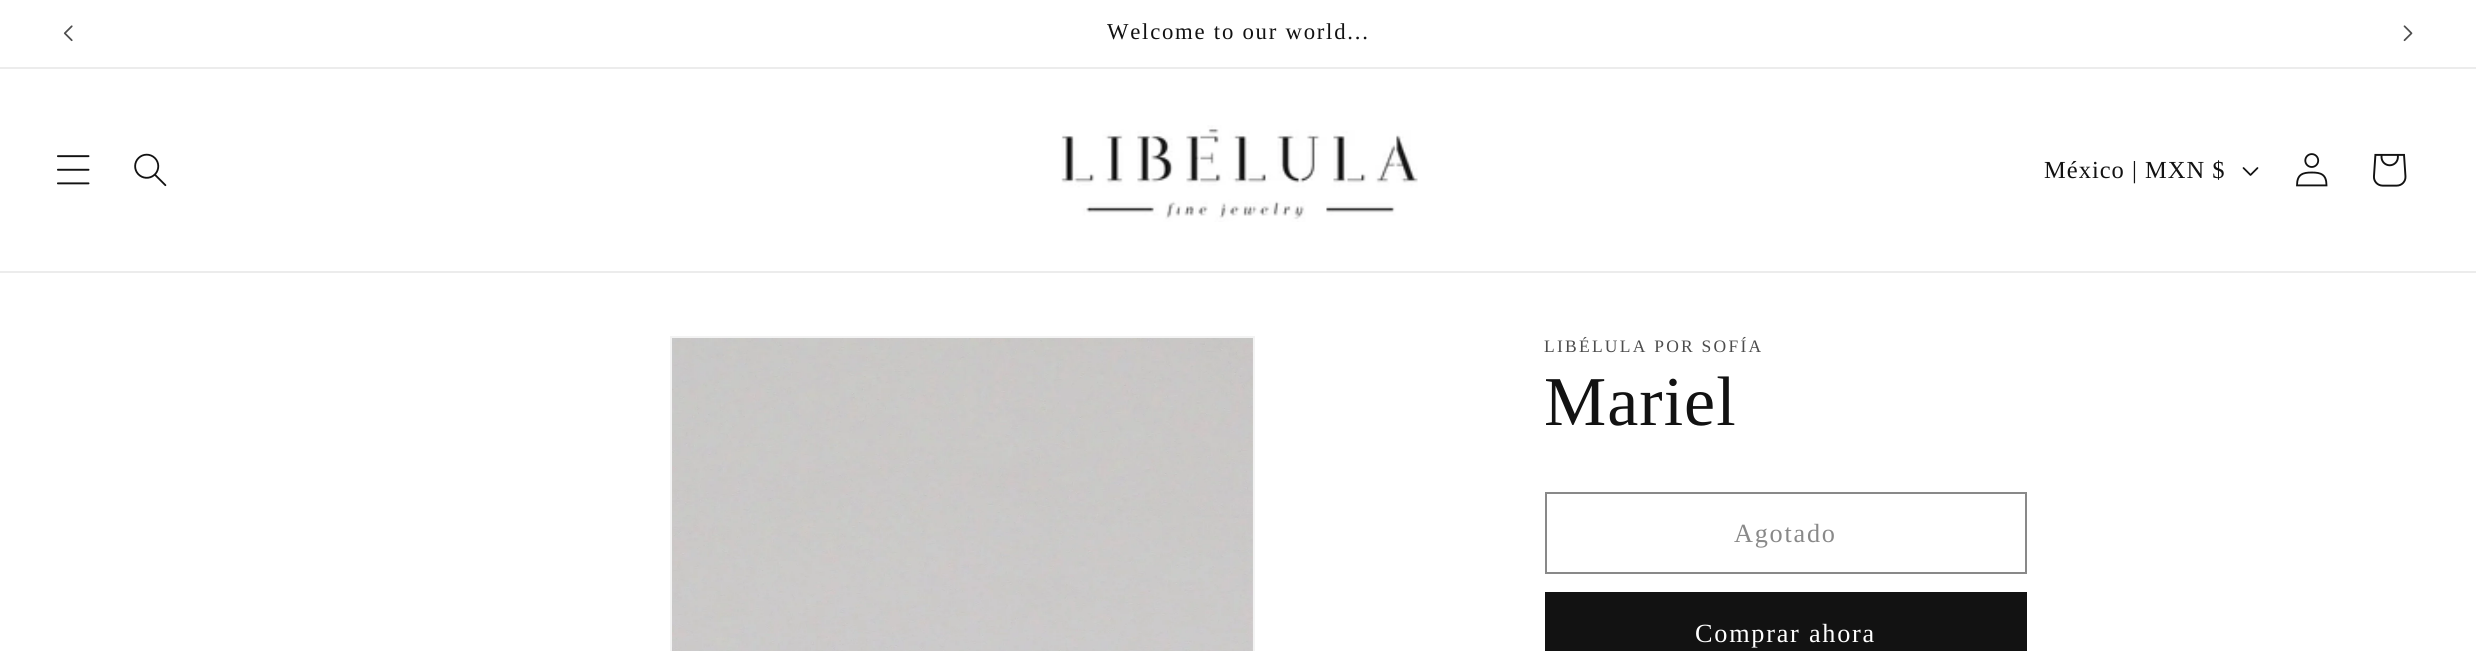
import math
import cairocffi as cairo

surface = cairo.ImageSurface(cairo.FORMAT_RGB24, 2476, 651)
ctx = cairo.Context(surface)
options = cairo.FontOptions()
options.set_hint_metrics(cairo.HINT_METRICS_OFF)
options.set_hint_style(cairo.HINT_STYLE_NONE)
ctx.set_font_options(options)
ctx.set_miter_limit(4)


def rgb(r, g, b):
    ctx.set_source_rgb(r / 255, g / 255, b / 255)


def face(family, size, italic, bold):
    ctx.select_font_face(family, cairo.FONT_SLANT_ITALIC if italic else cairo.FONT_SLANT_NORMAL, cairo.FONT_WEIGHT_BOLD if bold else cairo.FONT_WEIGHT_NORMAL)
    ctx.set_font_size(size)


def tracked(x, y, s, letter, word):
    ctx.move_to(x, y)
    for ch in s:
        ctx.show_text(ch)
        ctx.rel_move_to(letter + word * (ch == ' '), 0)


def rect(x, y, w, h):
    ctx.rectangle(x, y, w, h)
    ctx.fill()


def image(path, x, y, w, h):
    ctx.save()
    ctx.set_source_surface(cairo.ImageSurface.create_from_png(path), x, y)
    ctx.rectangle(x, y, w, h)
    ctx.fill()
    ctx.restore()


rgb(255, 255, 255)
ctx.paint()
rgb(236, 236, 236)
rect(0, 67, 2476, 2)
image('image0.png', 63, 25, 10, 17)
face('Liberation Serif', 22.75, 0, 0)
rgb(18, 18, 18)
tracked(1107, 39, 'Welcome to our world...', 1.75, 0)
image('image1.png', 2403, 25, 10, 17)
rgb(236, 236, 236)
rect(0, 271, 2476, 2)
image('image2.png', 57, 155, 33, 30)
image('image3.png', 134, 153, 33, 34)
image('image4.png', 1061, 125, 357, 97)
face('Liberation Serif', 24.5, 0, 0)
rgb(18, 18, 18)
tracked(2044, 178, 'México | MXN $', 1, 0)
image('image5.png', 2242, 167, 17, 9)
image('image6.png', 2296, 153, 32, 34)
image('image7.png', 2373, 153, 34, 34)
ctx.rectangle(671, 337, 583, 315)
rgb(243, 243, 243)
ctx.stroke()
image('image8.png', 672, 338, 581, 313)
face('Liberation Serif', 17.5, 0, 0)
rgb(77, 77, 77)
tracked(1544, 352, 'LIBÉLULA POR SOFÍA', 2.25, 0)
face('Liberation Serif', 70, 0, 0)
rgb(18, 18, 18)
tracked(1544, 425, 'Mariel', 1, 0)
ctx.rectangle(1546, 493, 480, 80)
rgb(137, 137, 137)
ctx.stroke()
face('Liberation Serif', 26.25, 0, 0)
tracked(1734, 542, 'Agotado', 1.75, 0)
rgb(18, 18, 18)
rect(1545, 592, 482, 59)
rgb(255, 255, 255)
tracked(1695, 642, 'Comprar ahora', 1.75, 0)
surface.write_to_png('render.png')
